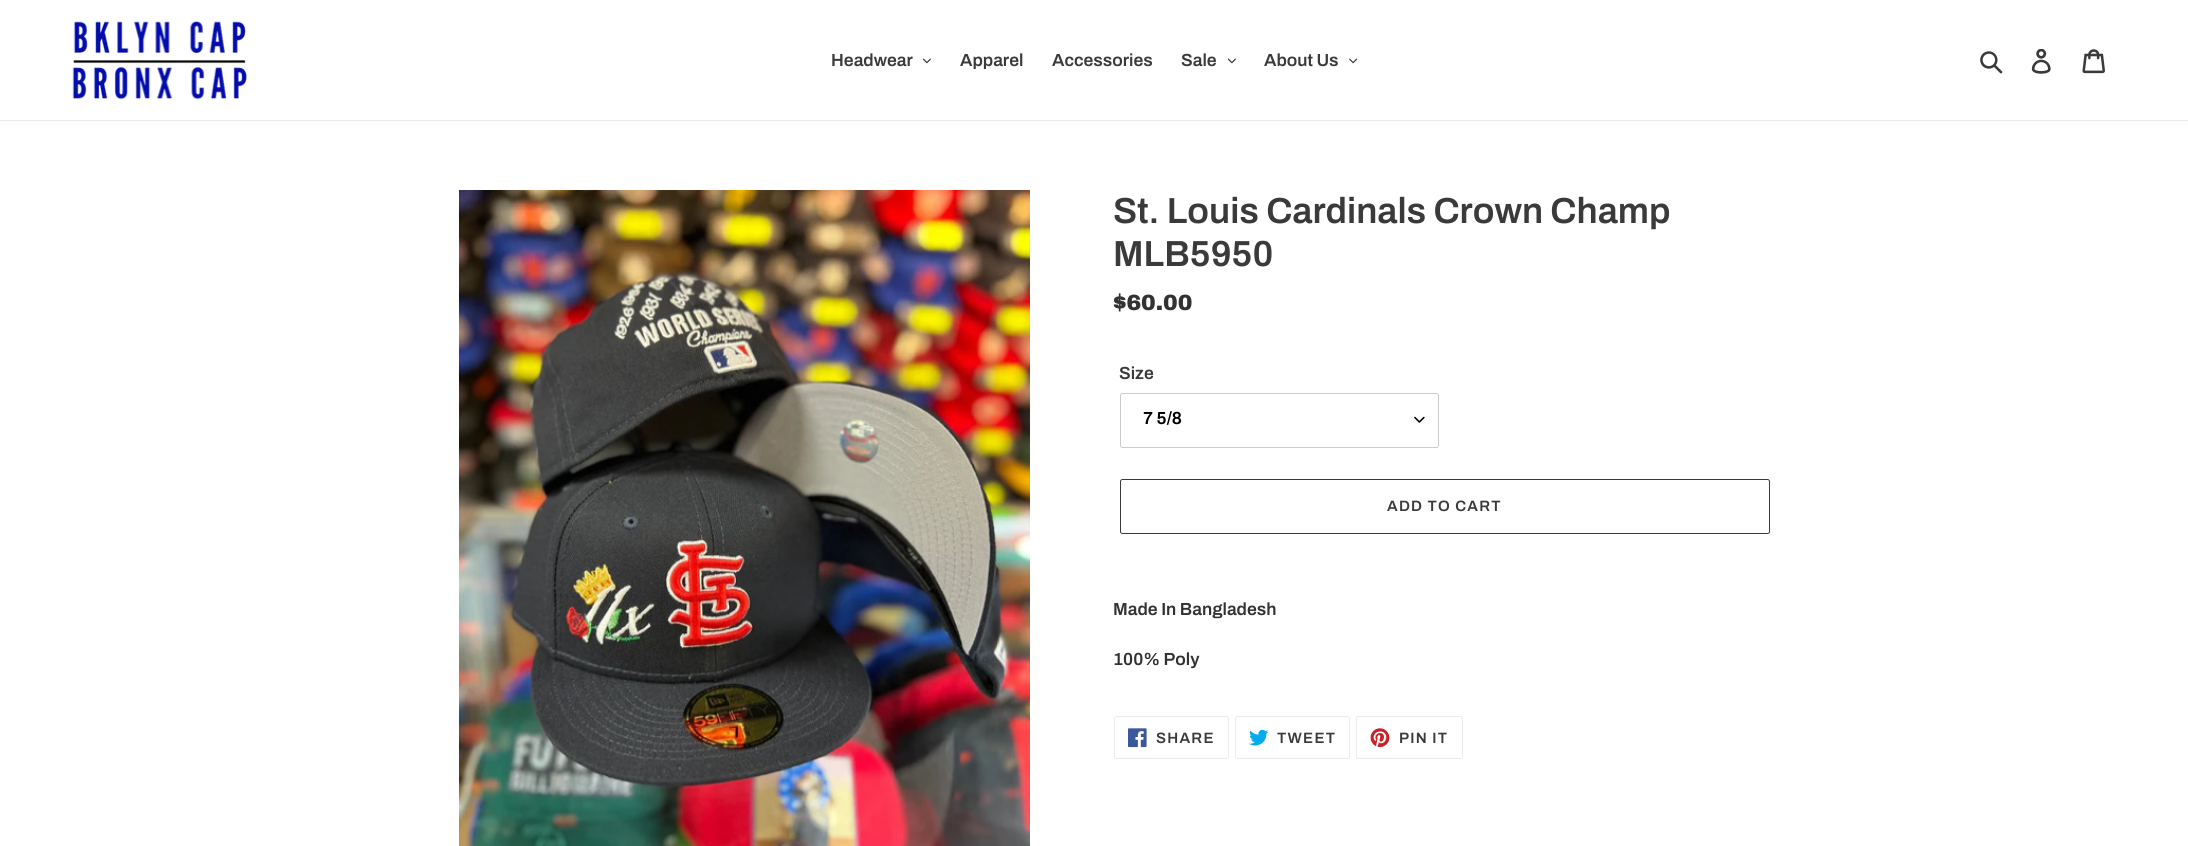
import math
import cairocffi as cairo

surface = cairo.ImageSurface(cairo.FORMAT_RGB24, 2188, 846)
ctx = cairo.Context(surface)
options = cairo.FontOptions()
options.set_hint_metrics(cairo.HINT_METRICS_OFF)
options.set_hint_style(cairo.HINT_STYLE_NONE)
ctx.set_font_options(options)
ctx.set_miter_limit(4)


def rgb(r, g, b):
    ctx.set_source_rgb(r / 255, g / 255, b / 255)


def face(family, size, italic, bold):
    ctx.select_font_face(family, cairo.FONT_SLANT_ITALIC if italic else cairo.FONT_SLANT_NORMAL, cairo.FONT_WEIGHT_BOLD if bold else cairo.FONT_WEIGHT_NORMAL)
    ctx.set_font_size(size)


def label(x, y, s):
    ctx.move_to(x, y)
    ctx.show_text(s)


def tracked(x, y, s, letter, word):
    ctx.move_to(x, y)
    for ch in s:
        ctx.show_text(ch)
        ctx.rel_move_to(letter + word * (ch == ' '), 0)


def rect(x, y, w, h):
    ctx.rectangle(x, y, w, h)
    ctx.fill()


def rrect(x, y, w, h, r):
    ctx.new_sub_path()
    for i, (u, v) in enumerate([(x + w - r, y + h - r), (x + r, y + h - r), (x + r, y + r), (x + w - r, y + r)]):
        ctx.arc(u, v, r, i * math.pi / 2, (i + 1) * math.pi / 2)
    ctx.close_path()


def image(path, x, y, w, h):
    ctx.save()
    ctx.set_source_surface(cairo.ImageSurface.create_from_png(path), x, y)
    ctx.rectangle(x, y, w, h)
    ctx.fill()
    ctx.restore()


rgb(255, 255, 255)
ctx.paint()
rgb(235, 235, 235)
rect(0, 120, 2188, 1)
image('image0.png', 72, 21, 175, 79)
face('Archivo SemiBold', 17.5, 0, 0)
rgb(58, 58, 58)
label(831, 66, 'Headwear')
image('image1.png', 923, 58, 8, 6)
label(960, 66, 'Apparel')
label(1052, 66, 'Accessories')
label(1181, 66, 'Sale')
image('image1.png', 1228, 58, 8, 6)
label(1264, 66, 'About Us')
image('image2.png', 1349, 58, 9, 6)
image('image3.png', 1980, 51, 23, 23)
image('image4.png', 2031, 49, 20, 25)
image('image5.png', 2082, 49, 23, 25)
image('image6.png', 459, 190, 571, 656)
face('Archivo SemiBold', 36.25, 0, 0)
label(1113, 223, 'St. Louis Cardinals Crown Champ')
label(1113, 266, 'MLB5950')
face('Archivo Black', 22, 0, 0)
rgb(51, 50, 50)
label(1113, 310, '$60.00')
face('Archivo SemiBold', 17.5, 0, 0)
rgb(58, 58, 58)
label(1119, 379, 'Size')
image('image7.png', 1414, 416, 11, 7)
rrect(1120.5, 393.5, 318, 54, 2)
rgb(204, 204, 204)
ctx.set_line_width(1)
ctx.stroke()
rgb(0, 0, 0)
label(1143, 424, '7 5/8')
rrect(1120.5, 479.5, 649, 54, 2)
rgb(58, 58, 58)
ctx.stroke()
face('Archivo SemiBold', 15, 0, 0)
tracked(1387, 511, 'ADD TO CART', 1.25, 0)
face('Archivo SemiBold', 17.5, 0, 0)
rgb(51, 50, 50)
label(1113, 615, 'Made In Bangladesh')
label(1113, 665, '100% Poly')
rrect(1114.5, 716.5, 114, 42, 2)
rgb(235, 235, 235)
ctx.stroke()
image('image8.png', 1128, 728, 19, 20)
face('Archivo SemiBold', 15, 0, 0)
rgb(58, 58, 58)
tracked(1156, 743, 'SHARE', 1.25, 0)
rrect(1235.5, 716.5, 114, 42, 2)
rgb(235, 235, 235)
ctx.stroke()
image('image9.png', 1249, 729, 20, 17)
rgb(58, 58, 58)
tracked(1277, 743, 'TWEET', 1.25, 0)
rrect(1356.5, 716.5, 106, 42, 2)
rgb(235, 235, 235)
ctx.stroke()
image('image10.png', 1370, 728, 20, 19)
rgb(58, 58, 58)
tracked(1399, 743, 'PIN IT', 1.25, 0)
surface.write_to_png('render.png')
